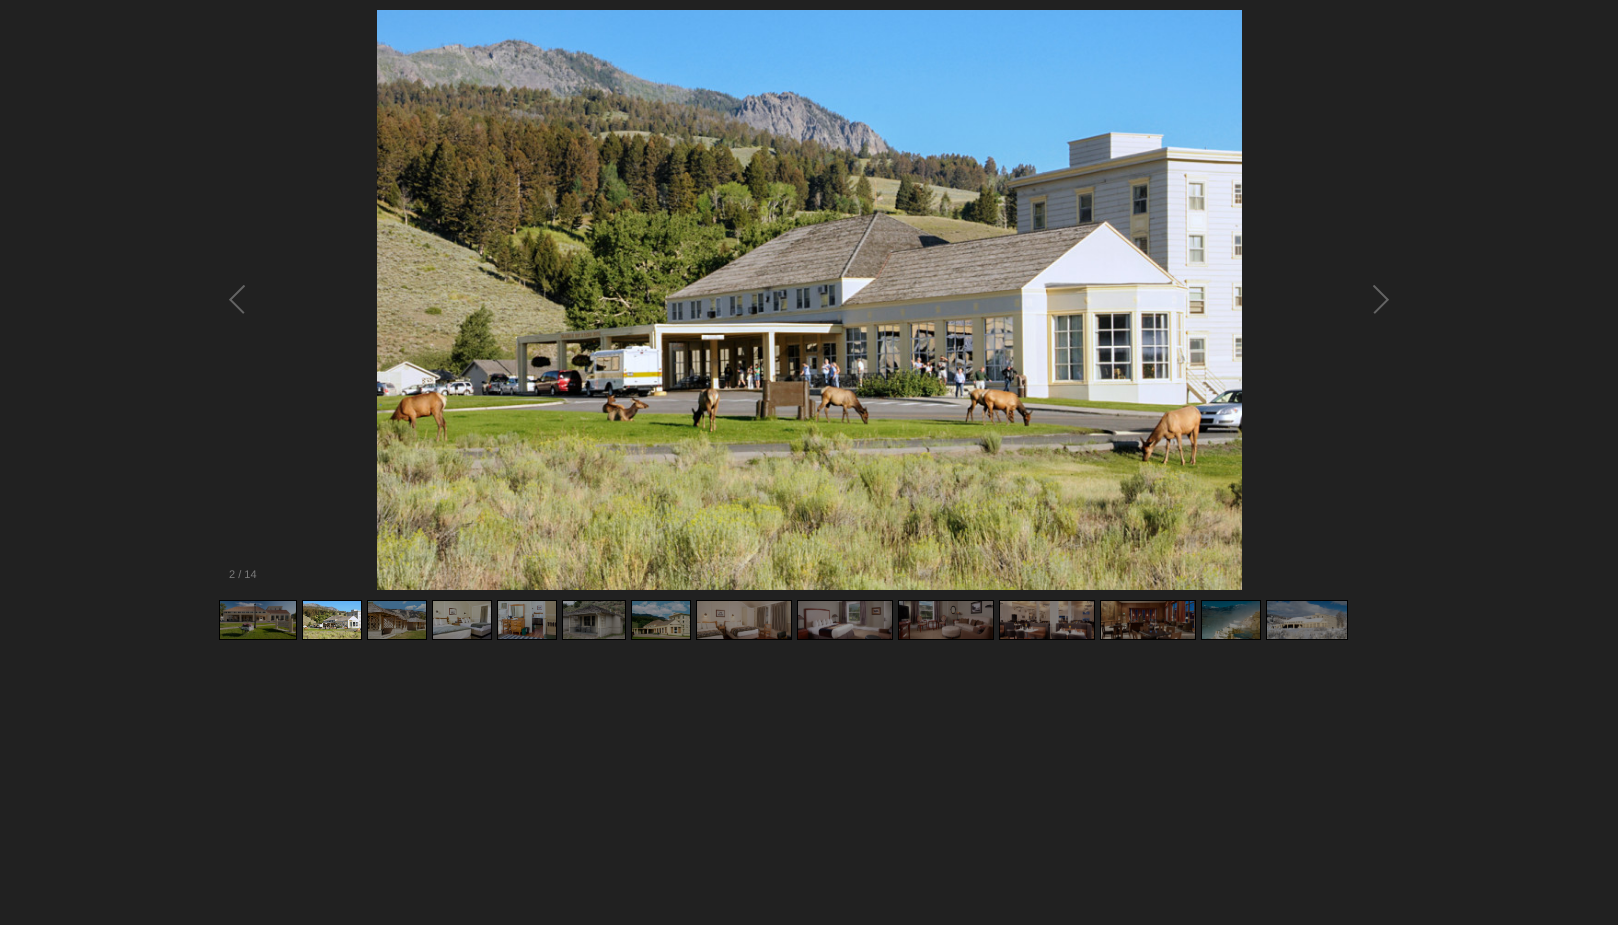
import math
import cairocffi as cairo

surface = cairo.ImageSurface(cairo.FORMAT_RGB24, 1618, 925)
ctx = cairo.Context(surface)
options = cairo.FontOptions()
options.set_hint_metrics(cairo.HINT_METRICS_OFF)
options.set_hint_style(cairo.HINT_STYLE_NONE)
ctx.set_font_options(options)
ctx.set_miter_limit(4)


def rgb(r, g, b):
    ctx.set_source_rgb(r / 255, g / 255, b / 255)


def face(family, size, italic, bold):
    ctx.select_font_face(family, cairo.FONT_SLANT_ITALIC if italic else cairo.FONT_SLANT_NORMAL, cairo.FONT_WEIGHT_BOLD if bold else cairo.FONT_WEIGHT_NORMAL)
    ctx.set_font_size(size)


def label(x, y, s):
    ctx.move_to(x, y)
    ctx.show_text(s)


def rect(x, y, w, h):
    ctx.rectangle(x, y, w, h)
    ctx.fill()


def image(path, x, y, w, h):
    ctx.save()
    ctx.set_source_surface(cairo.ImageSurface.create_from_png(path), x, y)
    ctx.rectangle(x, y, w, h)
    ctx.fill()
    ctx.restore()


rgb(33, 33, 33)
ctx.paint()
image('image0.png', 377, 10, 865, 580)
image('image1.png', 229, 285, 16, 29)
image('image2.png', 1373, 285, 16, 29)
face('Liberation Sans', 11, 0, 0)
rgb(122, 122, 122)
label(229, 578, '2 / 14')
rgb(0, 0, 0)
rect(219, 600, 78, 40)
image('image3.png', 220, 601, 76, 38)
rect(302, 600, 60, 40)
image('image4.png', 303, 601, 58, 38)
rect(367, 600, 60, 40)
image('image5.png', 368, 601, 58, 38)
rect(432, 600, 60, 40)
image('image6.png', 433, 601, 58, 38)
rect(497, 600, 60, 40)
image('image7.png', 498, 601, 58, 38)
rect(562, 600, 64, 40)
image('image8.png', 563, 601, 62, 38)
rect(631, 600, 60, 40)
image('image9.png', 632, 601, 58, 38)
rect(696, 600, 96, 40)
image('image10.png', 697, 601, 94, 38)
rect(797, 600, 96, 40)
image('image11.png', 798, 601, 94, 38)
rect(898, 600, 96, 40)
image('image12.png', 899, 601, 94, 38)
rect(999, 600, 96, 40)
image('image13.png', 1000, 601, 94, 38)
rect(1100, 600, 96, 40)
image('image14.png', 1101, 601, 94, 38)
rect(1201, 600, 60, 40)
image('image15.png', 1202, 601, 58, 38)
rect(1266, 600, 82, 40)
image('image16.png', 1267, 601, 80, 38)
surface.write_to_png('render.png')
